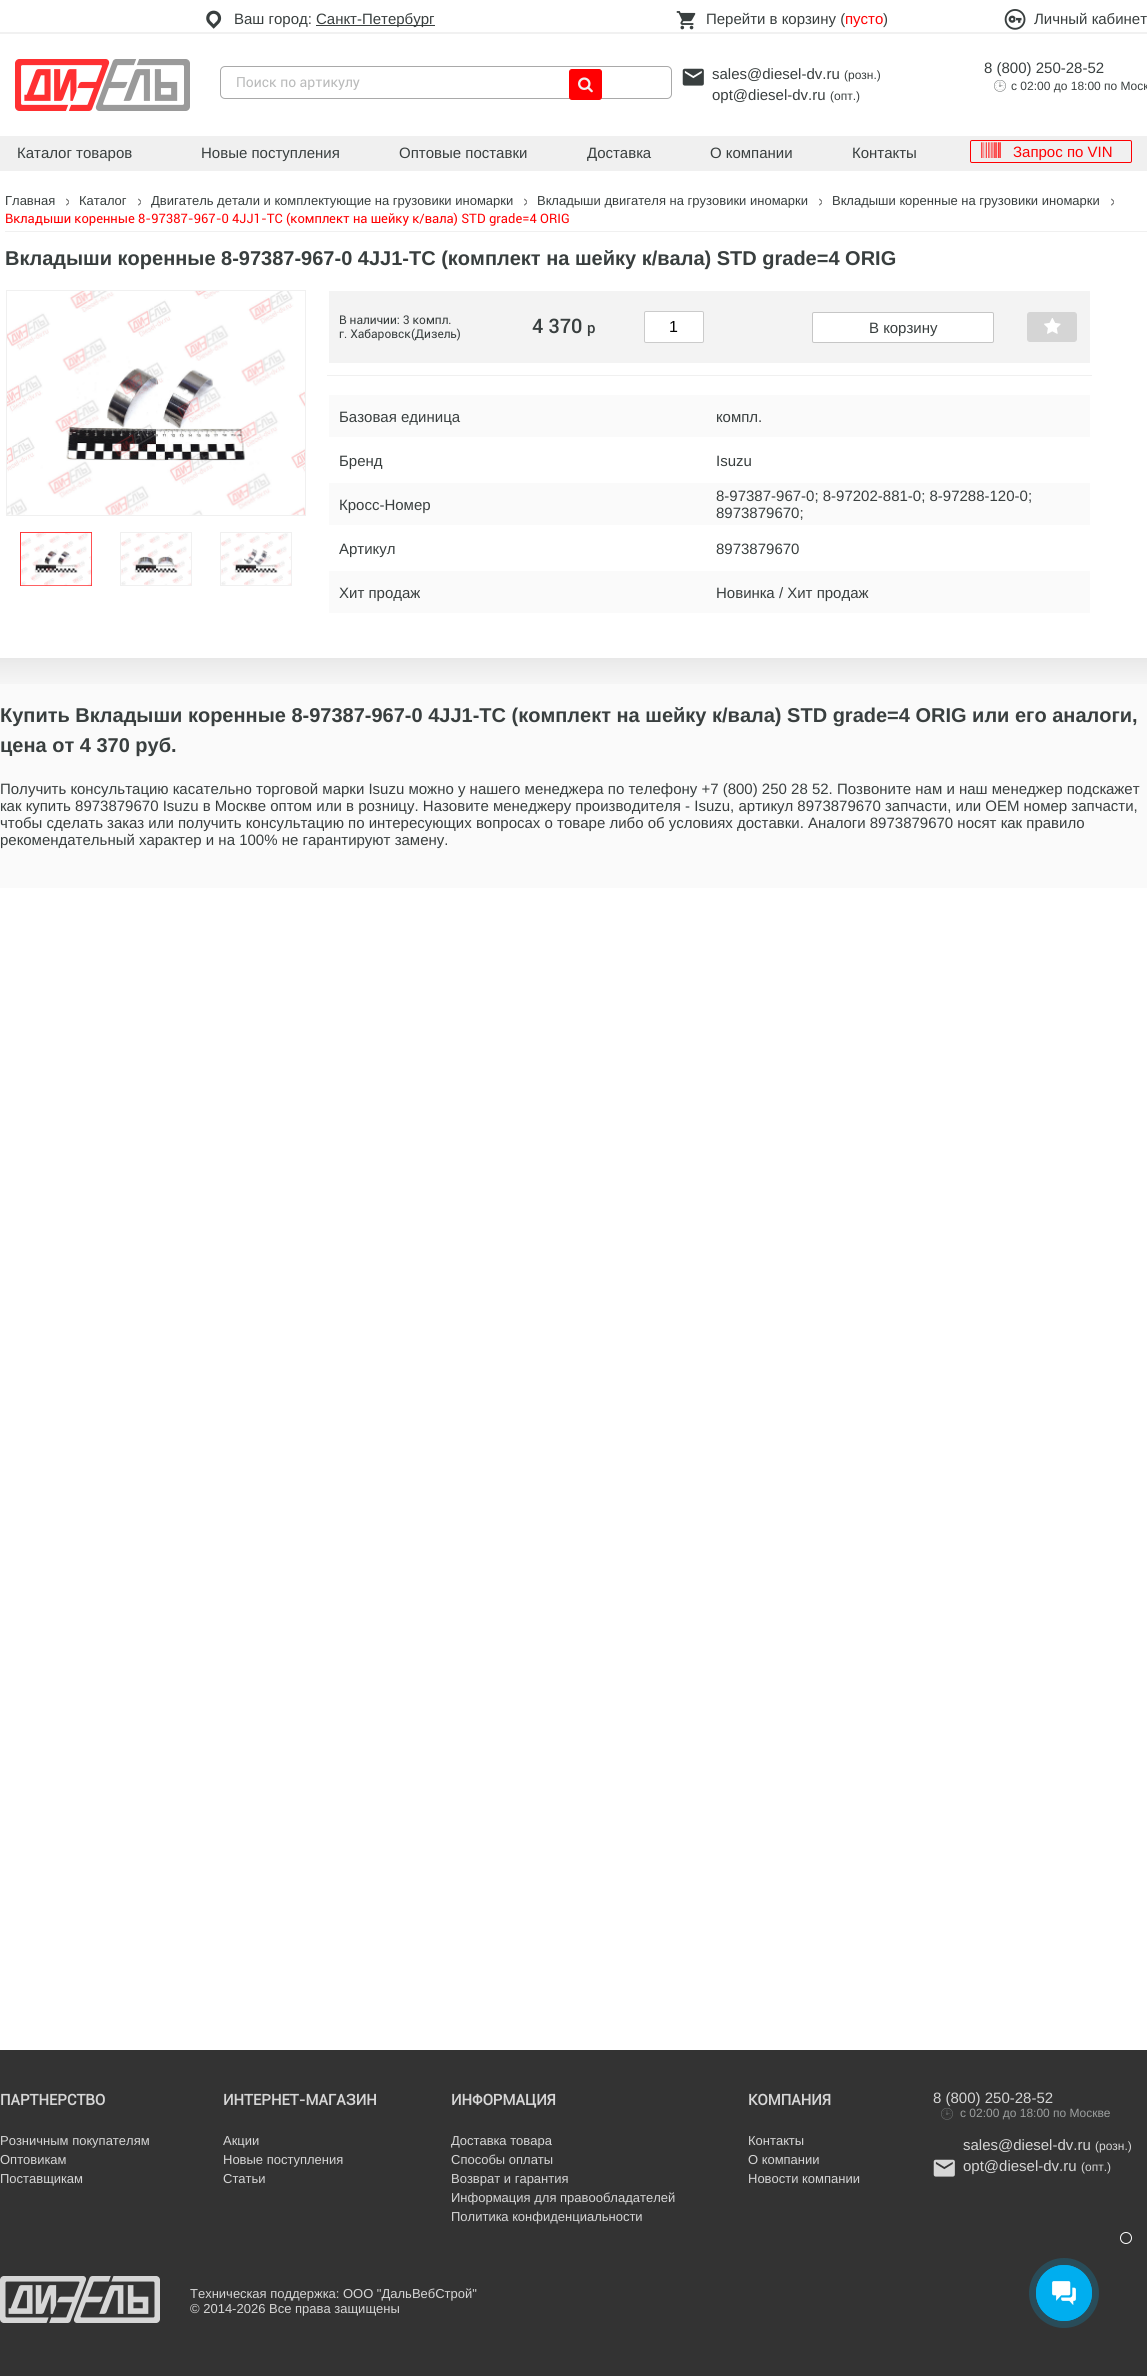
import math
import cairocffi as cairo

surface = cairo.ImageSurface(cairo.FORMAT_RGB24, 1147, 2376)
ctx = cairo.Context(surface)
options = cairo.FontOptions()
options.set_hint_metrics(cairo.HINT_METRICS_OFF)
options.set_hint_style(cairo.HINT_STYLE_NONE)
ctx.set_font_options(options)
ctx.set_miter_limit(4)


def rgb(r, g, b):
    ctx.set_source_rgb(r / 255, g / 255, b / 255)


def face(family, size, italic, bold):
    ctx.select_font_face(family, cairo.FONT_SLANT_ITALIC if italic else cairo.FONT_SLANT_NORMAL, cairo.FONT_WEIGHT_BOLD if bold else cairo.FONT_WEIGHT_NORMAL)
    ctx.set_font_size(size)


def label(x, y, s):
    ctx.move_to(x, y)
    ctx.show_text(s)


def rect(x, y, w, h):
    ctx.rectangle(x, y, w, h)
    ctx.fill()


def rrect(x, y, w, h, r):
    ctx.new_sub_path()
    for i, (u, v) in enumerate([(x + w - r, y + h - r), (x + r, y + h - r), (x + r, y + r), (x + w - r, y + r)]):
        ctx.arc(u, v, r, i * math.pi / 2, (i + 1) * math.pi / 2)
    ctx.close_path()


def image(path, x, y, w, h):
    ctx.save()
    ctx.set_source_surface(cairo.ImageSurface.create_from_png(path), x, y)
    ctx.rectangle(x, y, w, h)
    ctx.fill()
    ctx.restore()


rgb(255, 255, 255)
ctx.paint()
rgb(241, 241, 241)
rect(0, 32, 1147, 2)
image('image0.png', 206, 10, 16, 19)
face('Liberation Sans', 15, 0, 0)
rgb(57, 63, 63)
label(234, 24, 'Ваш город:')
rect(316, 25, 119, 1)
label(316, 24, 'Санкт-Петербург')
image('image1.png', 676, 11, 20, 19)
label(706, 24, 'Перейти в корзину (')
rgb(255, 0, 2)
label(845, 24, 'пусто')
rgb(57, 63, 63)
label(883, 24, ')')
image('image2.png', 1004, 9, 22, 21)
label(1034, 24, 'Личный кабинет')
image('image3.png', 15, 59, 175, 52)
rrect(220.5, 66.5, 451, 32, 4.5)
rgb(169, 169, 169)
ctx.set_line_width(1)
ctx.stroke()
face('Roboto', 14, 0, 0)
rgb(186, 187, 187)
label(236, 87, 'Поиск по артикулу')
rgb(255, 0, 2)
rrect(569.5, 69.5, 32, 30, 2.5)
ctx.fill_preserve()
ctx.stroke()
image('image4.png', 578, 77, 15, 16)
image('image5.png', 682, 68, 22, 18)
face('Liberation Sans', 15, 0, 0)
rgb(57, 63, 63)
label(712, 79, 'sales@diesel-dv.ru')
face('Liberation Sans', 12, 0, 0)
label(844, 79, '(розн.)')
face('Liberation Sans', 15, 0, 0)
label(712, 100, 'opt@diesel-dv.ru')
face('Liberation Sans', 12, 0, 0)
label(830, 100, '(опт.)')
face('Liberation Sans', 15, 0, 0)
label(984, 73, '8 (800) 250-28-52')
image('image6.png', 994, 80, 12, 12)
face('Liberation Sans', 12, 0, 0)
label(1011, 90, 'с 02:00 до 18:00 по Моск')
rgb(240, 240, 240)
rect(0, 136, 1147, 35)
face('Liberation Sans', 15, 0, 0)
rgb(57, 63, 63)
label(17, 158, 'Каталог товаров')
label(201, 158, 'Новые поступления')
label(399, 158, 'Оптовые поставки')
label(587, 158, 'Доставка')
label(710, 158, 'О компании')
label(852, 158, 'Контакты')
rrect(970.5, 140.5, 161, 22, 1.5)
rgb(255, 0, 2)
ctx.stroke()
image('image7.png', 981, 142, 20, 16)
label(1013, 157, 'Запрос по VIN')
rgb(240, 240, 240)
rect(5, 231, 1142, 1)
face('Liberation Sans', 13, 0, 0)
rgb(57, 63, 63)
label(5, 205, 'Главная')
image('image8.png', 66, 198, 3, 8)
label(79, 205, 'Каталог')
image('image8.png', 138, 198, 3, 8)
label(151, 205, 'Двигатель детали и комплектующие на грузовики иномарки')
image('image8.png', 524, 198, 3, 8)
label(537, 205, 'Вкладыши двигателя на грузовики иномарки')
image('image8.png', 819, 198, 3, 8)
label(832, 205, 'Вкладыши коренные на грузовики иномарки')
image('image8.png', 1111, 198, 3, 8)
face('Roboto', 13, 0, 0)
rgb(255, 0, 2)
label(5, 223, 'Вкладыши коренные 8-97387-967-0 4JJ1-TC (комплект на шейку к/вала) STD grade=4 ORIG')
face('Liberation Sans', 20, 0, 1)
rgb(57, 63, 63)
label(5, 265, 'Вкладыши коренные 8-97387-967-0 4JJ1-TC (комплект на шейку к/вала) STD grade=4 ORIG')
ctx.rectangle(6.5, 290.5, 299, 225)
rgb(240, 240, 240)
ctx.stroke()
image('image9.png', 7, 291, 298, 224)
ctx.rectangle(20.5, 532.5, 71, 53)
rgb(255, 51, 53)
ctx.stroke()
image('image10.png', 21, 532, 71, 54)
ctx.rectangle(120.5, 532.5, 71, 53)
rgb(240, 240, 240)
ctx.stroke()
image('image11.png', 121, 533, 70, 52)
ctx.rectangle(220.5, 532.5, 71, 53)
ctx.stroke()
image('image12.png', 221, 533, 70, 52)
rgb(243, 243, 243)
rect(329, 291, 761, 72)
face('Roboto', 12, 0, 0)
rgb(57, 63, 63)
label(339, 324, 'В наличии: 3 компл.')
label(339, 338, 'г. Хабаровск(Дизель)')
face('Roboto Medium', 20, 0, 0)
label(532, 333, '4 370')
face('Roboto Medium', 15, 0, 0)
label(587, 333, 'р')
rgb(255, 255, 255)
rrect(644.5, 311.5, 59, 31, 1.5)
ctx.fill_preserve()
rgb(203, 203, 203)
ctx.stroke()
face('Liberation Sans', 16, 0, 0)
rgb(0, 0, 0)
label(669, 332, '1')
rgb(255, 255, 255)
rrect(812.5, 312.5, 181, 30, 1.5)
ctx.fill_preserve()
rgb(198, 198, 198)
ctx.stroke()
face('Liberation Sans', 15, 0, 0)
rgb(57, 63, 63)
label(869, 333, 'В корзину')
rgb(213, 213, 213)
rrect(1027.5, 312.5, 49, 29, 2.5)
ctx.fill_preserve()
ctx.stroke()
image('image13.png', 1044, 318, 17, 16)
rgb(240, 240, 240)
rect(327, 375, 765, 1)
rgb(250, 250, 250)
rect(329, 395, 761, 42)
rgb(57, 63, 63)
label(339, 422, 'Базовая единица')
label(716, 422, 'компл.')
label(339, 466, 'Бренд')
label(716, 466, 'Isuzu')
rgb(250, 250, 250)
rect(329, 483, 761, 42)
rgb(57, 63, 63)
label(339, 510, 'Кросс-Номер')
label(716, 501, '8-97387-967-0; 8-97202-881-0; 8-97288-120-0;')
label(716, 518, '8973879670;')
label(339, 554, 'Артикул')
label(716, 554, '8973879670')
rgb(250, 250, 250)
rect(329, 571, 761, 42)
rgb(57, 63, 63)
label(339, 598, 'Хит продаж')
label(716, 598, 'Новинка / Хит продаж')
rgb(250, 250, 250)
rect(0, 684, 1147, 204)
image('image14.png', 0, 658, 1147, 26)
face('Liberation Sans', 20, 0, 1)
rgb(57, 63, 63)
label(0, 722, 'Купить Вкладыши коренные 8-97387-967-0 4JJ1-TC (комплект на шейку к/вала) STD grade=4 ORIG или его аналоги,')
label(0, 752, 'цена от 4 370 руб.')
face('Liberation Sans', 15, 0, 0)
label(0, 794, 'Получить консультацию касательно торговой марки Isuzu можно у нашего менеджера по телефону +7 (800) 250 28 52. Позвоните нам и наш менеджер подскажет')
label(0, 811, 'как купить 8973879670 Isuzu в Москве оптом или в розницу. Назовите менеджеру производителя - Isuzu, артикул 8973879670 запчасти, или ОЕМ номер запчасти,')
label(0, 828, 'чтобы сделать заказ или получить консультацию по интересующих вопросах о товаре либо об условиях доставки. Аналоги 8973879670 носят как правило')
label(0, 845, 'рекомендательный характер и на 100% не гарантируют замену.')
rgb(51, 51, 51)
rect(0, 2050, 1147, 326)
face('Roboto', 15, 0, 1)
rgb(214, 214, 214)
label(0, 2105, 'ПАРТНЕРСТВО')
face('Liberation Sans', 13, 0, 0)
label(0, 2145, 'Розничным покупателям')
label(0, 2164, 'Оптовикам')
label(0, 2183, 'Поставщикам')
face('Roboto', 15, 0, 1)
label(223, 2105, 'ИНТЕРНЕТ-МАГАЗИН')
face('Liberation Sans', 13, 0, 0)
label(223, 2145, 'Акции')
label(223, 2164, 'Новые поступления')
label(223, 2183, 'Статьи')
face('Roboto', 15, 0, 1)
label(451, 2105, 'ИНФОРМАЦИЯ')
face('Liberation Sans', 13, 0, 0)
label(451, 2145, 'Доставка товара')
label(451, 2164, 'Способы оплаты')
label(451, 2183, 'Возврат и гарантия')
label(451, 2202, 'Информация для правообладателей')
label(451, 2221, 'Политика конфиденциальности')
face('Roboto', 15, 0, 1)
label(748, 2105, 'КОМПАНИЯ')
face('Liberation Sans', 13, 0, 0)
label(748, 2145, 'Контакты')
label(748, 2164, 'О компании')
label(748, 2183, 'Новости компании')
face('Liberation Sans', 15, 0, 0)
label(933, 2103, '8 (800) 250-28-52')
image('image15.png', 941, 2108, 12, 12)
face('Liberation Sans', 12, 0, 0)
rgb(156, 159, 159)
label(960, 2117, 'с 02:00 до 18:00 по Москве')
image('image16.png', 933, 2159, 22, 18)
face('Liberation Sans', 15, 0, 0)
rgb(214, 214, 214)
label(963, 2150, 'sales@diesel-dv.ru')
face('Liberation Sans', 12, 0, 0)
label(1095, 2150, '(розн.)')
face('Liberation Sans', 15, 0, 0)
label(963, 2171, 'opt@diesel-dv.ru')
face('Liberation Sans', 12, 0, 0)
label(1081, 2171, '(опт.)')
ctx.new_path()
ctx.arc(1126, 2238, 5.5, 0, 2 * math.pi)
rgb(255, 255, 255)
ctx.stroke()
image('image17.png', 0, 2276, 160, 47)
face('Liberation Sans', 13, 0, 0)
rgb(214, 214, 214)
label(190, 2298, 'Техническая поддержка: ООО "ДальВебСтрой"')
label(190, 2313, '© 2014-2026 Все права защищены')
rgb(41, 76, 89)
ctx.new_path()
ctx.arc(1064, 2293, 35, 0, 2 * math.pi)
ctx.fill()
ctx.arc(1064, 2293, 27.6, 0, 2 * math.pi)
rgb(0, 174, 239)
ctx.set_line_width(0.8)
ctx.stroke()
ctx.arc(1064, 2293, 28, 0, 2 * math.pi)
ctx.fill()
image('image18.png', 1052, 2281, 24, 24)
surface.write_to_png('render.png')
